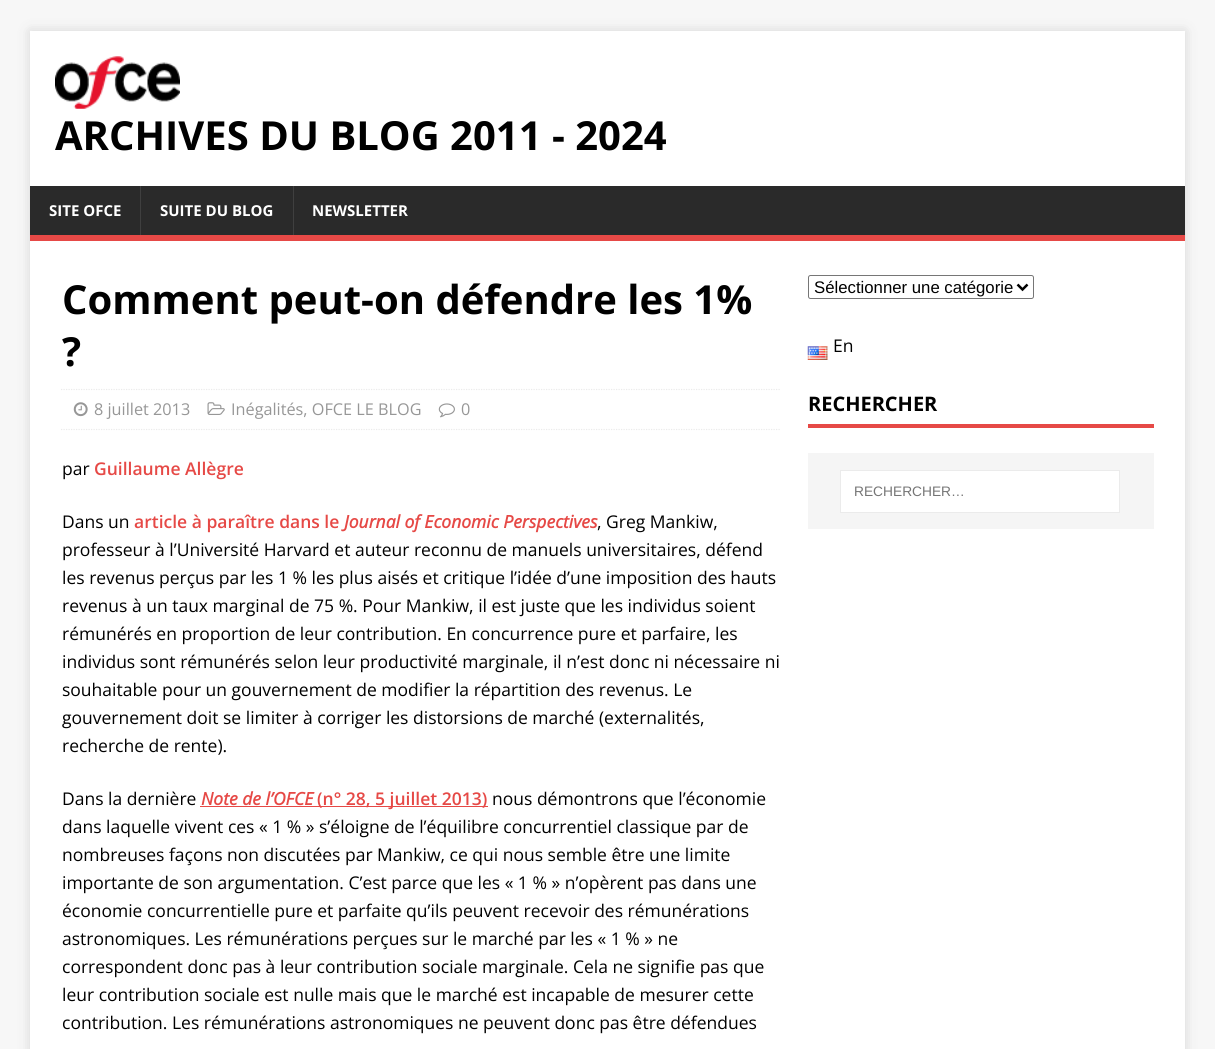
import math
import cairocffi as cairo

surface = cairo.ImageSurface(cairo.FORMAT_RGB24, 1215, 1049)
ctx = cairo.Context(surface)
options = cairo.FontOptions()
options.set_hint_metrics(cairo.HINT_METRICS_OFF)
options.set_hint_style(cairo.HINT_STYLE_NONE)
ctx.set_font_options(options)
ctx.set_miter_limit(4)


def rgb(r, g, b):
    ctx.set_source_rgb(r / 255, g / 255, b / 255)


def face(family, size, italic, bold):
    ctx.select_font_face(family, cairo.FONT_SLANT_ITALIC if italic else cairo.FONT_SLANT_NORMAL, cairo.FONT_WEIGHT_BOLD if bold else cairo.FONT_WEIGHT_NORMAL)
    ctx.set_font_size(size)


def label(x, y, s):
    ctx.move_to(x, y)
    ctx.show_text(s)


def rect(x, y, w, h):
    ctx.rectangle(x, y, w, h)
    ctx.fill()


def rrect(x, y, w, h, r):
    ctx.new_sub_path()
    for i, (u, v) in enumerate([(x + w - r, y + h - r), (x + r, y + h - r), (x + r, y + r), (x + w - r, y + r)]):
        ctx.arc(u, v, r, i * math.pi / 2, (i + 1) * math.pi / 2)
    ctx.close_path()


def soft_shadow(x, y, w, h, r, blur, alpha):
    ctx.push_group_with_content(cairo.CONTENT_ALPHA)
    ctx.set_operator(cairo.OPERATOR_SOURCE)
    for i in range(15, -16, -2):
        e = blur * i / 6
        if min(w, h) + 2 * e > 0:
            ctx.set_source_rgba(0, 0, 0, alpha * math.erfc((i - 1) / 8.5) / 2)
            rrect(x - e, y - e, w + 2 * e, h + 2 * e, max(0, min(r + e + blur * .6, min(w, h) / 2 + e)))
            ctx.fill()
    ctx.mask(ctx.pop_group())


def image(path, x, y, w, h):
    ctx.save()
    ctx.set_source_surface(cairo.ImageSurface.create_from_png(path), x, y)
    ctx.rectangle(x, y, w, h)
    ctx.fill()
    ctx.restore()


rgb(247, 247, 247)
ctx.paint()
rgb(50, 50, 50)
soft_shadow(30, 31, 1155, 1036, 0, 6, 0.17)
rgb(255, 255, 255)
rect(30, 31, 1155, 155)
image('image0.png', 55, 56, 125, 53)
face('Open Sans', 40, 0, 1)
rgb(0, 0, 0)
label(55, 150, 'ARCHIVES DU BLOG 2011 - 2024')
rgb(42, 42, 42)
rect(30, 186, 1155, 49)
rgb(230, 73, 70)
rect(30, 235, 1155, 6)
face('Open Sans', 15, 0, 1)
rgb(255, 255, 255)
label(49, 216, 'SITE OFCE')
rgb(63, 63, 63)
rect(140, 186, 1, 49)
rgb(255, 255, 255)
label(160, 216, 'SUITE DU BLOG')
rgb(63, 63, 63)
rect(293, 186, 1, 49)
rgb(255, 255, 255)
label(312, 216, 'NEWSLETTER')
rect(30, 241, 1155, 808)
face('Open Sans', 40, 0, 1)
rgb(0, 0, 0)
label(62, 314, 'Comment peut-on défendre les 1%')
label(62, 366, '?')
ctx.new_path()
ctx.move_to(61, 389.5)
ctx.line_to(780, 389.5)
rgb(235, 235, 235)
ctx.set_line_width(1.2)
ctx.set_dash([1.25, 1.25])
ctx.stroke()
ctx.new_path()
ctx.move_to(61, 429.5)
ctx.line_to(780, 429.5)
ctx.stroke()
image('image1.png', 73, 402, 15, 15)
face('Open Sans', 16.25, 0, 0)
rgb(151, 151, 151)
label(94, 415, '8 juillet 2013')
image('image2.png', 207, 402, 18, 13)
label(231, 415, 'Inégalités, OFCE LE BLOG')
image('image3.png', 438, 403, 17, 15)
label(461, 415, '0')
face('Open Sans', 17.5, 0, 0)
rgb(0, 0, 0)
label(62, 475, 'par')
face('Open Sans SemiBold', 17.5, 0, 0)
rgb(230, 73, 70)
label(94, 475, 'Guillaume Allègre')
face('Open Sans', 17.5, 0, 0)
rgb(0, 0, 0)
label(62, 528, 'Dans un')
face('Open Sans SemiBold', 17.5, 0, 0)
rgb(230, 73, 70)
label(134, 528, 'article à paraître dans le')
face('Open Sans', 17.5, 1, 1)
label(344, 528, 'Journal of Economic Perspectives')
face('Open Sans', 17.5, 0, 0)
rgb(0, 0, 0)
label(597, 528, ', Greg Mankiw,')
label(62, 556, 'professeur à l’Université Harvard et auteur reconnu de manuels universitaires, défend')
label(62, 584, 'les revenus perçus par les 1 % les plus aisés et critique l’idée d’une imposition des hauts')
label(62, 612, 'revenus à un taux marginal de 75 %. Pour Mankiw, il est juste que les individus soient')
label(62, 640, 'rémunérés en proportion de leur contribution. En concurrence pure et parfaire, les')
label(62, 668, 'individus sont rémunérés selon leur productivité marginale, il n’est donc ni nécessaire ni')
label(62, 696, 'souhaitable pour un gouvernement de modifier la répartition des revenus. Le')
label(62, 724, 'gouvernement doit se limiter à corriger les distorsions de marché (externalités,')
label(62, 752, 'recherche de rente).')
label(62, 805, 'Dans la dernière')
face('Open Sans', 17.5, 1, 1)
rgb(230, 73, 70)
label(201, 805, 'Note de l’OFCE')
rect(200, 806, 288, 1)
face('Open Sans SemiBold', 17.5, 0, 0)
label(317, 805, '(n° 28, 5 juillet 2013)')
face('Open Sans', 17.5, 0, 0)
rgb(0, 0, 0)
label(492, 805, 'nous démontrons que l’économie')
label(62, 833, 'dans laquelle vivent ces « 1 % » s’éloigne de l’équilibre concurrentiel classique par de')
label(62, 861, 'nombreuses façons non discutées par Mankiw, ce qui nous semble être une limite')
label(62, 889, 'importante de son argumentation. C’est parce que les « 1 % » n’opèrent pas dans une')
label(62, 917, 'économie concurrentielle pure et parfaite qu’ils peuvent recevoir des rémunérations')
label(62, 945, 'astronomiques. Les rémunérations perçues sur le marché par les « 1 % » ne')
label(62, 973, 'correspondent donc pas à leur contribution sociale marginale. Cela ne signifie pas que')
label(62, 1001, 'leur contribution sociale est nulle mais que le marché est incapable de mesurer cette')
label(62, 1029, 'contribution. Les rémunérations astronomiques ne peuvent donc pas être défendues')
rrect(808.5, 275.5, 225, 23, 2)
rgb(118, 118, 118)
ctx.set_line_width(1)
ctx.set_dash([])
ctx.stroke()
ctx.new_path()
ctx.move_to(1017.5, 284.5)
ctx.line_to(1022.5, 289.5)
ctx.line_to(1027.5, 284.5)
rgb(0, 0, 0)
ctx.set_line_width(2.5)
ctx.stroke()
face('Liberation Sans', 16.75, 0, 0)
label(814, 293, 'Sélectionner une catégorie')
image('image4.png', 807, 346, 21, 14)
face('Open Sans', 17.5, 0, 0)
label(833, 352, 'En')
rgb(230, 73, 70)
rect(808, 424, 346, 4)
face('Open Sans', 20, 0, 1)
rgb(0, 0, 0)
label(808, 411, 'RECHERCHER')
rgb(245, 245, 245)
rect(808, 453, 346, 76)
rgb(255, 255, 255)
ctx.rectangle(840.5, 470.5, 279, 42)
ctx.fill_preserve()
rgb(235, 235, 235)
ctx.set_line_width(1)
ctx.stroke()
face('Liberation Sans', 13.75, 0, 0)
rgb(117, 117, 117)
label(854, 496, 'RECHERCHER…')
surface.write_to_png('render.png')
